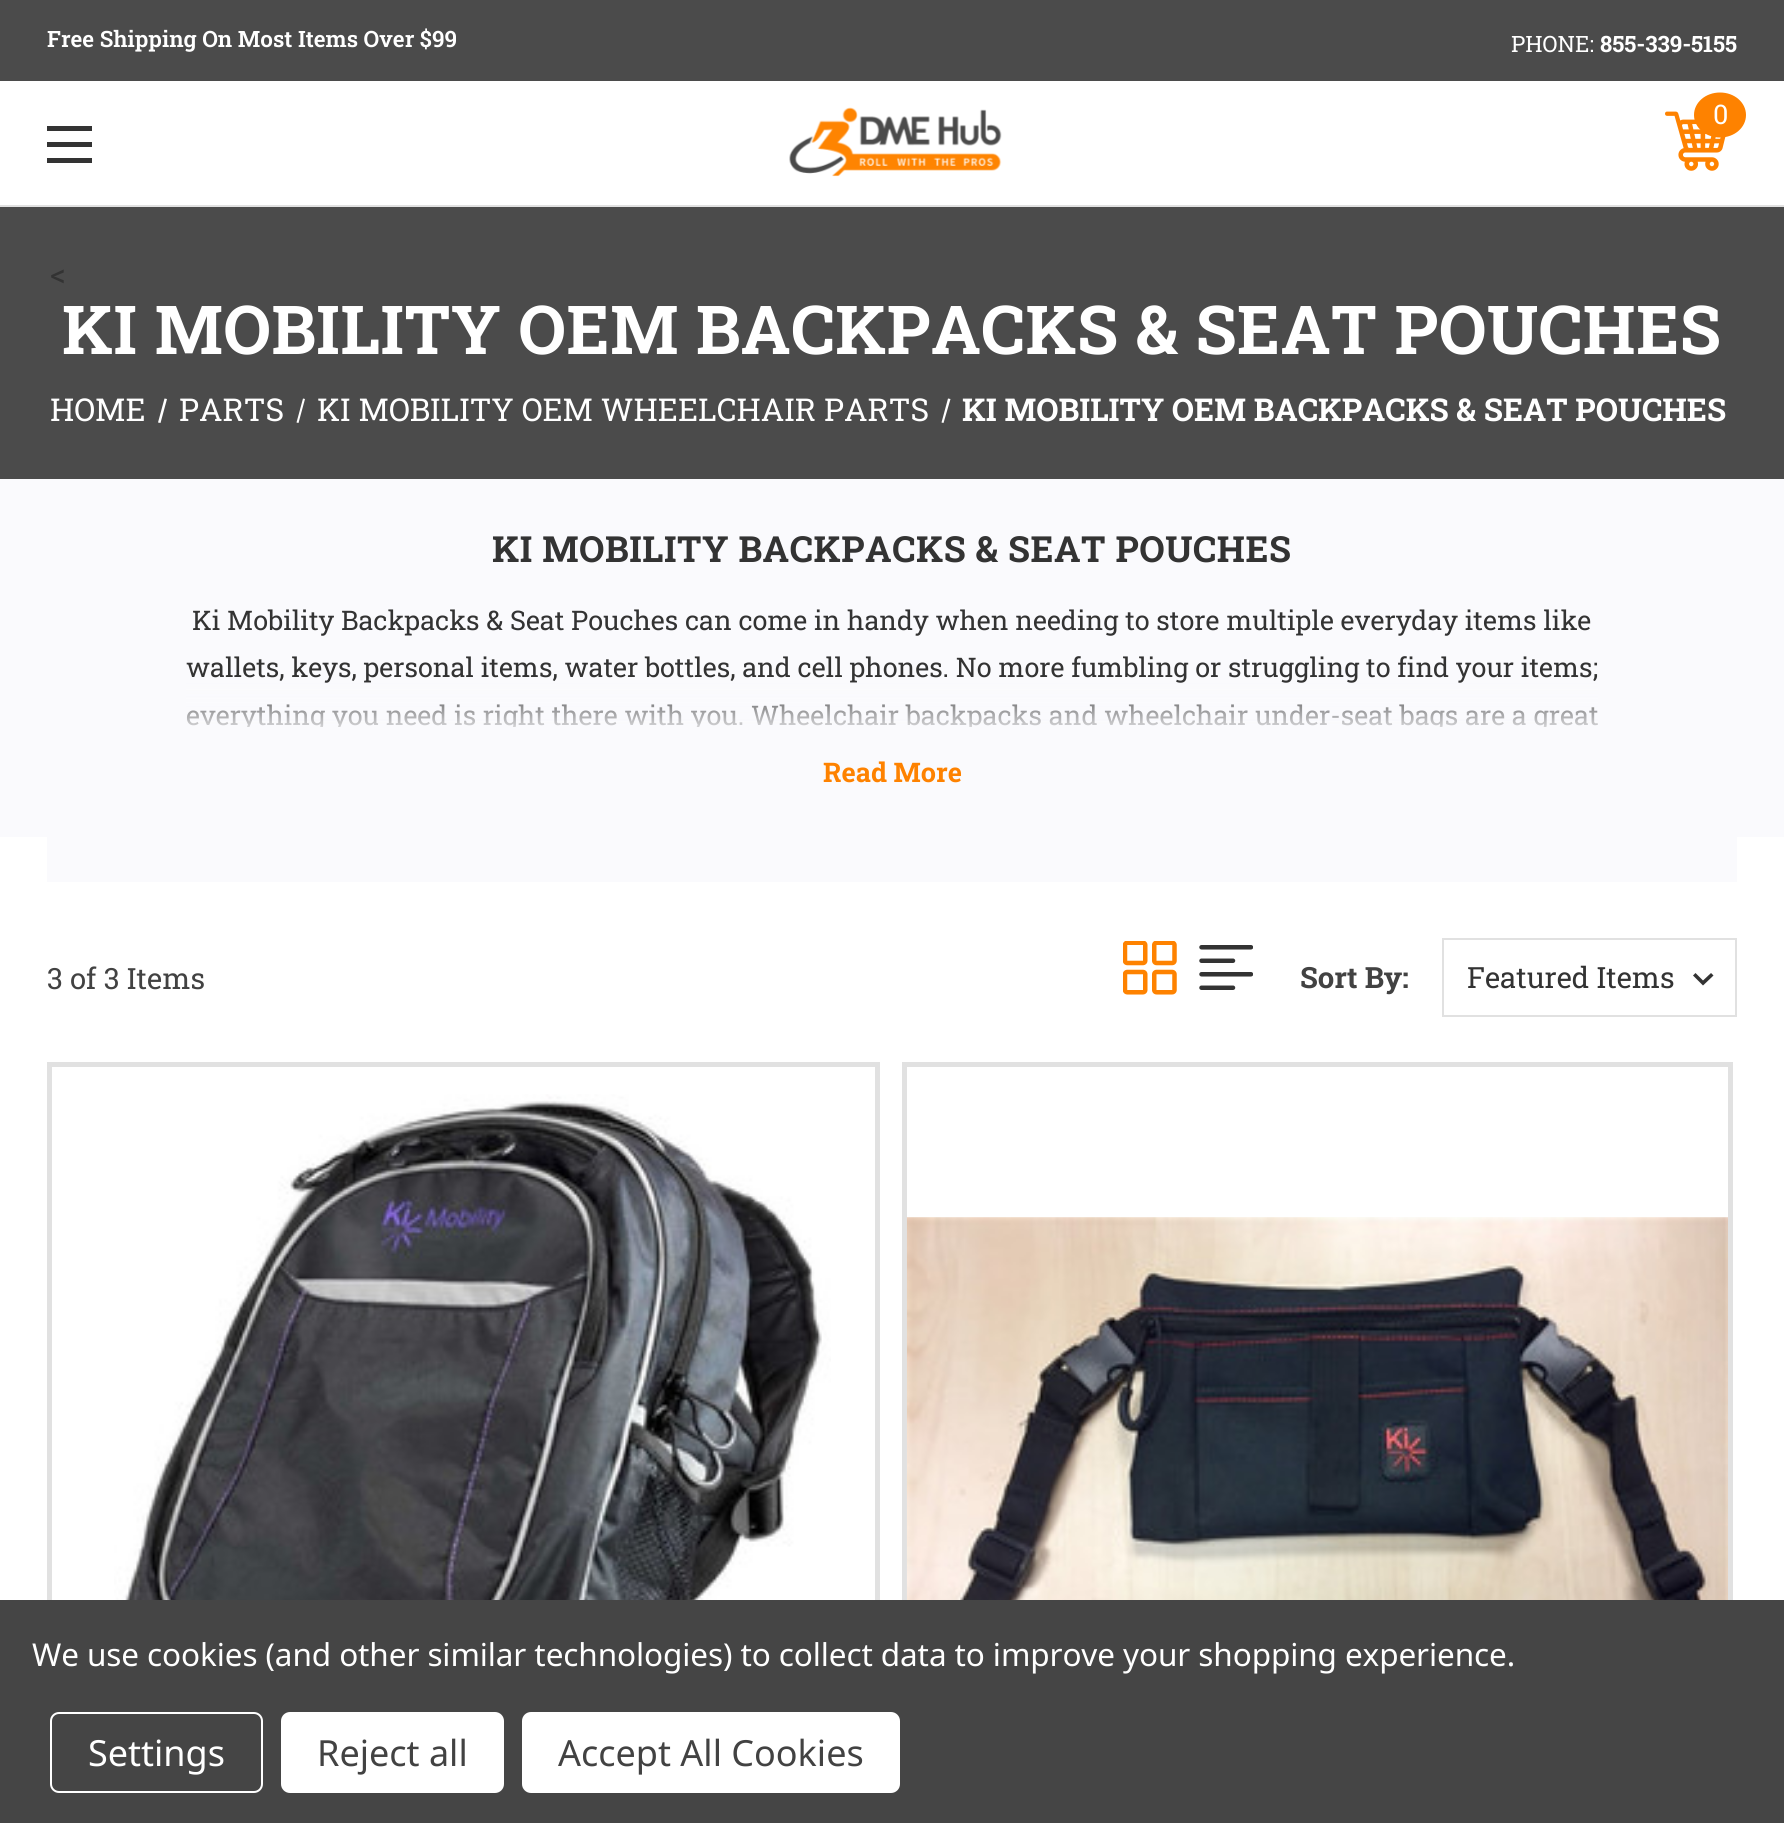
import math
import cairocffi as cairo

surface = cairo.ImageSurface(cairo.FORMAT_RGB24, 1784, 1823)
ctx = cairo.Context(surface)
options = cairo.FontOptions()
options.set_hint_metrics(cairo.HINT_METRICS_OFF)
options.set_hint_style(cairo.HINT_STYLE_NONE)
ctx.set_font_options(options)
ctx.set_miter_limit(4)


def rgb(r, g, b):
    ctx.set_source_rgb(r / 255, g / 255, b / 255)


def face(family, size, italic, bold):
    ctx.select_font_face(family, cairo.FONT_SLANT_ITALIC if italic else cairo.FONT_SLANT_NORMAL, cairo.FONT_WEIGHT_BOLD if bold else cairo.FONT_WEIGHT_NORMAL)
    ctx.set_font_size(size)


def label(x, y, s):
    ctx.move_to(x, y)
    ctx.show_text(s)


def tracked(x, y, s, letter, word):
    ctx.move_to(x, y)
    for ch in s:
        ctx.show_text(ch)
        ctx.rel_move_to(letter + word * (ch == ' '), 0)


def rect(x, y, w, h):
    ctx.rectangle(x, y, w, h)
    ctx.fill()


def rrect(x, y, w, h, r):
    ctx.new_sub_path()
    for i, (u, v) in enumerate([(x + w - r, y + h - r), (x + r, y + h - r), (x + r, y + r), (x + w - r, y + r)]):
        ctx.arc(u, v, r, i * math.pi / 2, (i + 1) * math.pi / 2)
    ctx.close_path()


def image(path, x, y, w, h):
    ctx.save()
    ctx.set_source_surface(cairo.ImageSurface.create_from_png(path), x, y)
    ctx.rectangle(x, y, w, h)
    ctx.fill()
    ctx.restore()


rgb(255, 255, 255)
ctx.paint()
rgb(75, 75, 75)
rect(0, 0, 1784, 81)
face('Roboto Slab SemiBold', 22.5, 0, 0)
rgb(255, 255, 255)
label(47, 47, 'Free Shipping On Most Items Over $99')
face('Roboto Slab', 22.5, 0, 0)
label(1511, 52, 'PHONE:')
face('Roboto Slab', 22.5, 0, 1)
label(1600, 52, '855-339-5155')
rgb(225, 225, 225)
rect(0, 205, 1784, 2)
rgb(51, 51, 51)
rect(47, 142, 45, 5)
rect(47, 126, 45, 5)
rect(47, 158, 45, 5)
image('image0.png', 789, 107, 213, 70)
image('image1.png', 1665, 111, 61, 60)
rgb(254, 130, 0)
ctx.new_path()
ctx.move_to(1720, 92.5)
ctx.curve_to(1734.5, 92.5, 1746, 102.5, 1746, 115)
ctx.curve_to(1746, 127.5, 1734.5, 137.5, 1720, 137.5)
ctx.curve_to(1705.5, 137.5, 1694, 127.5, 1694, 115)
ctx.curve_to(1694, 102.5, 1705.5, 92.5, 1720, 92.5)
ctx.close_path()
ctx.fill()
face('Roboto Slab', 27, 0, 0)
rgb(255, 255, 255)
label(1713, 124, '0')
rgb(75, 75, 75)
rect(0, 207, 1784, 272)
face('Roboto Slab', 31.5, 0, 0)
rgb(51, 51, 51)
label(50, 285, '<')
face('Roboto Slab', 67.5, 0, 1)
rgb(255, 255, 255)
tracked(62, 354, 'KI MOBILITY OEM BACKPACKS & SEAT POUCHES', 0.55, 0)
face('Roboto Slab', 31.5, 0, 0)
label(50, 421, 'HOME')
ctx.new_path()
ctx.move_to(164.5, 398.5)
ctx.line_to(167, 399)
ctx.line_to(160.5, 423)
ctx.line_to(158, 422.5)
ctx.close_path()
ctx.fill()
label(179, 421, 'PARTS')
ctx.new_path()
ctx.move_to(303, 398.5)
ctx.line_to(305, 399)
ctx.line_to(298.5, 423)
ctx.line_to(296.5, 422.5)
ctx.close_path()
ctx.fill()
label(317, 421, 'KI MOBILITY OEM WHEELCHAIR PARTS')
ctx.new_path()
ctx.move_to(948, 398.5)
ctx.line_to(950.5, 399)
ctx.line_to(943.5, 423)
ctx.line_to(941.5, 422.5)
ctx.close_path()
ctx.fill()
face('Roboto Slab', 31.5, 0, 1)
label(962, 421, 'KI MOBILITY OEM BACKPACKS & SEAT POUCHES')
rgb(250, 250, 253)
rect(0, 479, 1784, 358)
face('Roboto Slab', 36, 0, 1)
rgb(51, 51, 51)
tracked(492, 562, 'KI MOBILITY BACKPACKS & SEAT POUCHES', 0.55, 0)
face('Roboto Slab', 27, 0, 0)
label(192, 630, 'Ki Mobility Backpacks & Seat Pouches can come in handy when needing to store multiple everyday items like')
label(186, 677, 'wallets, keys, personal items, water bottles, and cell phones. No more fumbling or struggling to find your items;')
ctx.save()
ctx.rectangle(162, 524, 1463, 203)
ctx.clip()
label(186, 725, 'everything you need is right there with you. Wheelchair backpacks and wheelchair under-seat bags are a great')
ctx.restore()
gradient = cairo.LinearGradient(893, 682, 893, 727)
gradient.add_color_stop_rgba(0, 0.98, 0.98, 0.992, 0.04)
gradient.add_color_stop_rgba(1, 0.98, 0.98, 0.992, 0.8)
ctx.set_source(gradient)
rect(186, 682, 1412, 45)
face('Roboto Slab', 27, 0, 1)
rgb(254, 130, 0)
label(823, 782, 'Read More')
rgb(250, 250, 253)
rect(47, 837, 1690, 45)
face('Roboto Slab', 29.25, 0, 0)
rgb(66, 66, 66)
label(47, 989, '3 of 3 Items')
image('image2.png', 1123, 941, 54, 54)
image('image3.png', 1199, 945, 54, 45)
face('Roboto Slab', 29.25, 0, 1)
label(1300, 988, 'Sort By:')
rgb(51, 51, 51)
ctx.new_path()
ctx.move_to(1711, 973)
ctx.line_to(1703, 980.5)
ctx.line_to(1695.5, 973)
ctx.line_to(1693, 975.5)
ctx.line_to(1703, 985.5)
ctx.line_to(1713.5, 975.5)
ctx.close_path()
ctx.fill()
ctx.rectangle(1443, 939, 293, 77)
rgb(225, 225, 225)
ctx.stroke()
face('Roboto Slab', 29.25, 0, 0)
rgb(51, 51, 51)
label(1467, 988, 'Featured Items')
ctx.rectangle(49.5, 1064.5, 828, 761)
rgb(225, 225, 225)
ctx.set_line_width(5)
ctx.stroke()
image('image4.png', 114, 1094, 717, 506)
ctx.rectangle(904.5, 1064.5, 826, 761)
ctx.stroke()
image('image5.png', 906, 1217, 822, 383)
rgb(69, 69, 69)
rect(0, 1600, 1784, 223)
face('Noto Sans', 31.5, 0, 0)
rgb(255, 255, 255)
tracked(32, 1666, 'We use cookies (and other similar technologies) to collect data to improve your shopping experience.', -0.1, 0)
rrect(51, 1713, 211, 79, 8)
ctx.set_line_width(2)
ctx.stroke()
face('Noto Sans', 36, 0, 0)
label(88, 1766, 'Settings')
rrect(281, 1712, 223, 81, 9)
ctx.fill()
rgb(66, 66, 66)
label(317, 1766, 'Reject all')
rgb(255, 255, 255)
rrect(522, 1712, 378, 81, 9)
ctx.fill()
rgb(66, 66, 66)
label(558, 1766, 'Accept All Cookies')
surface.write_to_png('render.png')
